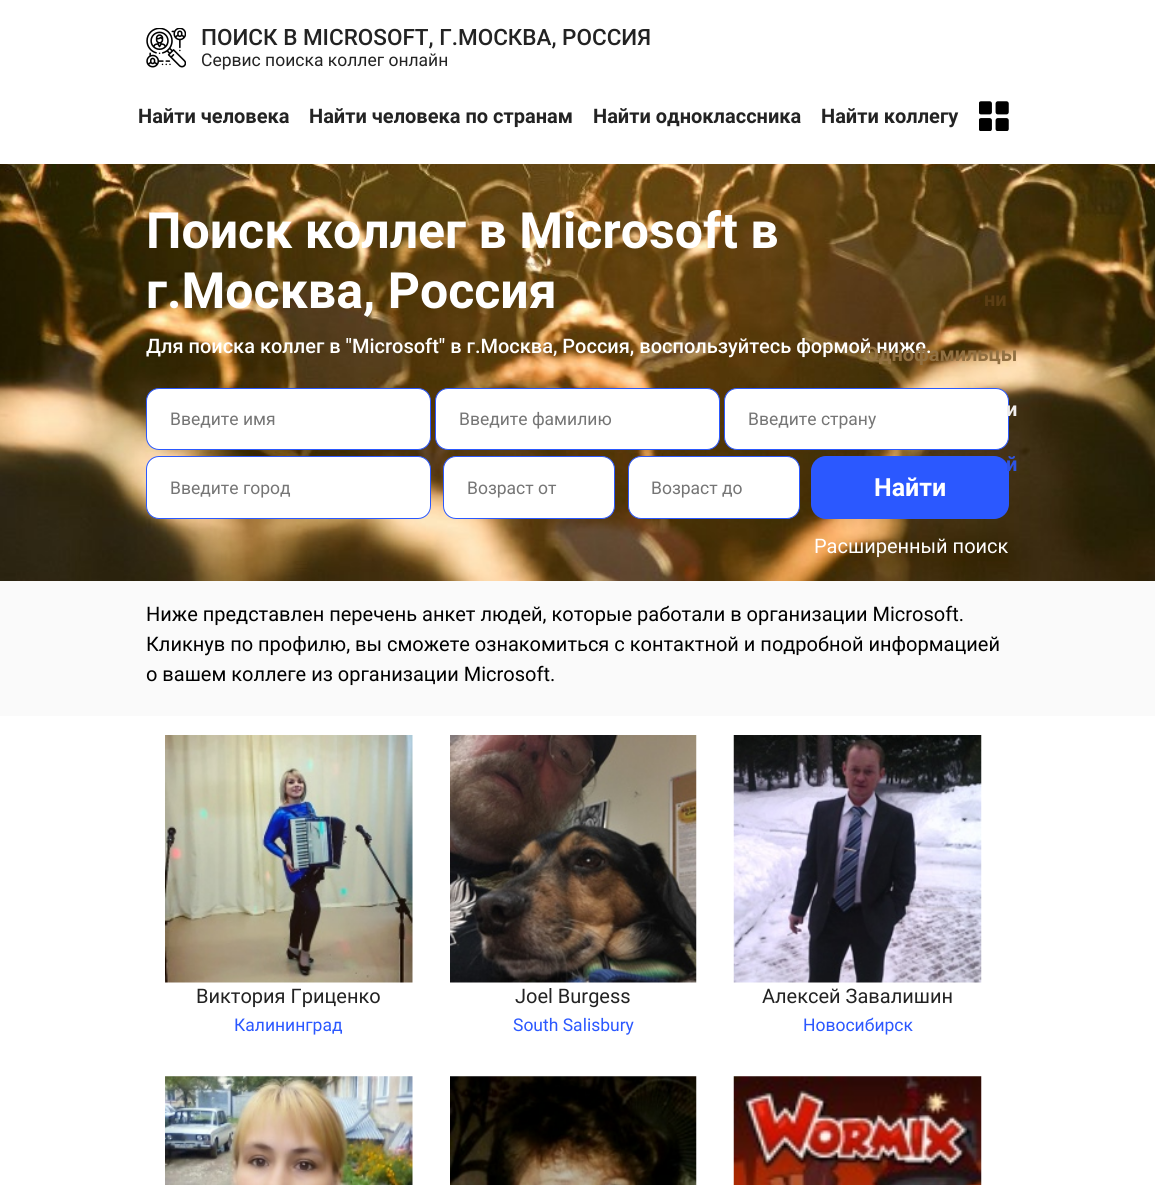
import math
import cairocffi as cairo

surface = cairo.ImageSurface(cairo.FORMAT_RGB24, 1155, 1185)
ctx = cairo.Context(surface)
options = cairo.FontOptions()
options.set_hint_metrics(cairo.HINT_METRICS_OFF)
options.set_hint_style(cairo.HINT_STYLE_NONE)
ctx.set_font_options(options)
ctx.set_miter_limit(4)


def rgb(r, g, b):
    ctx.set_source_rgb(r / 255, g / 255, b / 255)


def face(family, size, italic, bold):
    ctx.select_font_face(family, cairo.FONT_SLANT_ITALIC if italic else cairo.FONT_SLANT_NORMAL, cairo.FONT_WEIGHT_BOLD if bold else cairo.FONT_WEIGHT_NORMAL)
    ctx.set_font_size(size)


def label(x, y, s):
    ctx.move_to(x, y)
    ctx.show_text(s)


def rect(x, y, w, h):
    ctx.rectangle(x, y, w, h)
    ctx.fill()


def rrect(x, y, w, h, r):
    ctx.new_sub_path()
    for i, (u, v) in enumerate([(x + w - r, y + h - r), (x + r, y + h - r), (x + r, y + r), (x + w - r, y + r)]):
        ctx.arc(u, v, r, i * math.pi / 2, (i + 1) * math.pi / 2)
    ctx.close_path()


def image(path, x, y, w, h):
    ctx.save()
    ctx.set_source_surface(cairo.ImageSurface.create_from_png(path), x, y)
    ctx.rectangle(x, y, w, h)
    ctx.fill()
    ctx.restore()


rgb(255, 255, 255)
ctx.paint()
image('image0.png', 0, 164, 1155, 417)
image('image1.png', 146, 28, 40, 40)
face('Roboto Medium', 22.5, 0, 0)
rgb(35, 35, 35)
label(201, 45, 'ПОИСК В MICROSOFT, Г.МОСКВА, РОССИЯ')
face('Roboto', 17.5, 0, 0)
label(201, 66, 'Сервис поиска коллег онлайн')
face('Roboto', 20, 0, 1)
label(138, 123, 'Найти человека')
label(309, 123, 'Найти человека по странам')
label(593, 123, 'Найти одноклассника')
label(821, 123, 'Найти коллегу')
image('image2.png', 979, 101, 30, 30)
rgb(90, 61, 20)
label(984, 306, 'ни')
face('Roboto Medium', 20, 0, 0)
rgb(255, 255, 255)
label(146, 353, 'Для поиска коллег в "Microsoft" в г.Москва, Россия, воспользуйтесь формой ниже.')
face('Roboto', 20, 0, 1)
rgb(145, 112, 66)
label(865, 361, 'Однофамильцы')
rgb(255, 255, 255)
rrect(724.5, 388.5, 284, 61, 12.5)
ctx.fill_preserve()
rgb(43, 88, 255)
ctx.set_line_width(1)
ctx.stroke()
rgb(240, 239, 239)
label(1006, 416, 'и')
rgb(43, 88, 255)
rrect(811, 456, 198, 63, 15)
ctx.fill()
rgb(46, 84, 229)
label(1006, 471, 'й')
face('Roboto', 50, 0, 1)
rgb(255, 255, 255)
label(146, 248, 'Поиск коллег в Microsoft в')
label(146, 308, 'г.Москва, Россия')
rrect(146.5, 388.5, 284, 61, 12.5)
ctx.fill_preserve()
rgb(43, 88, 255)
ctx.stroke()
face('Roboto', 17.5, 0, 0)
rgb(117, 117, 117)
label(170, 425, 'Введите имя')
rgb(255, 255, 255)
rrect(435.5, 388.5, 284, 61, 12.5)
ctx.fill_preserve()
rgb(43, 88, 255)
ctx.stroke()
rgb(117, 117, 117)
label(459, 425, 'Введите фамилию')
label(748, 425, 'Введите страну')
rgb(255, 255, 255)
rrect(146.5, 456.5, 284, 62, 12.5)
ctx.fill_preserve()
rgb(43, 88, 255)
ctx.stroke()
rgb(117, 117, 117)
label(170, 494, 'Введите город')
rgb(255, 255, 255)
rrect(443.5, 456.5, 171, 62, 12.5)
ctx.fill_preserve()
rgb(43, 88, 255)
ctx.stroke()
rgb(117, 117, 117)
label(467, 494, 'Возраст от')
rgb(255, 255, 255)
rrect(628.5, 456.5, 171, 62, 12.5)
ctx.fill_preserve()
rgb(43, 88, 255)
ctx.stroke()
rgb(117, 117, 117)
label(651, 494, 'Возраст до')
face('Roboto', 25, 0, 1)
rgb(255, 255, 255)
label(874, 496, 'Найти')
face('Roboto', 20, 0, 0)
label(814, 553, 'Расширенный поиск')
rgb(250, 250, 250)
rect(0, 581, 1155, 135)
rgb(0, 0, 0)
label(146, 621, 'Ниже представлен перечень анкет людей, которые работали в организации Microsoft.')
label(146, 651, 'Кликнув по профилю, вы сможете ознакомиться с контактной и подробной информацией')
label(146, 681, 'о вашем коллеге из организации Microsoft.')
image('image3.png', 165, 735, 248, 248)
rgb(35, 35, 35)
label(196, 1003, 'Виктория Гриценко')
face('Roboto', 17.5, 0, 0)
rgb(43, 88, 255)
label(234, 1031, 'Калининград')
image('image4.png', 450, 735, 247, 248)
face('Roboto', 20, 0, 0)
rgb(35, 35, 35)
label(515, 1003, 'Joel Burgess')
face('Roboto', 17.5, 0, 0)
rgb(43, 88, 255)
label(513, 1031, 'South Salisbury')
image('image5.png', 733, 735, 249, 248)
face('Roboto', 20, 0, 0)
rgb(35, 35, 35)
label(762, 1003, 'Алексей Завалишин')
face('Roboto', 17.5, 0, 0)
rgb(43, 88, 255)
label(803, 1031, 'Новосибирск')
image('image6.png', 165, 1076, 248, 109)
image('image7.png', 450, 1076, 247, 109)
image('image8.png', 733, 1076, 249, 109)
surface.write_to_png('render.png')
